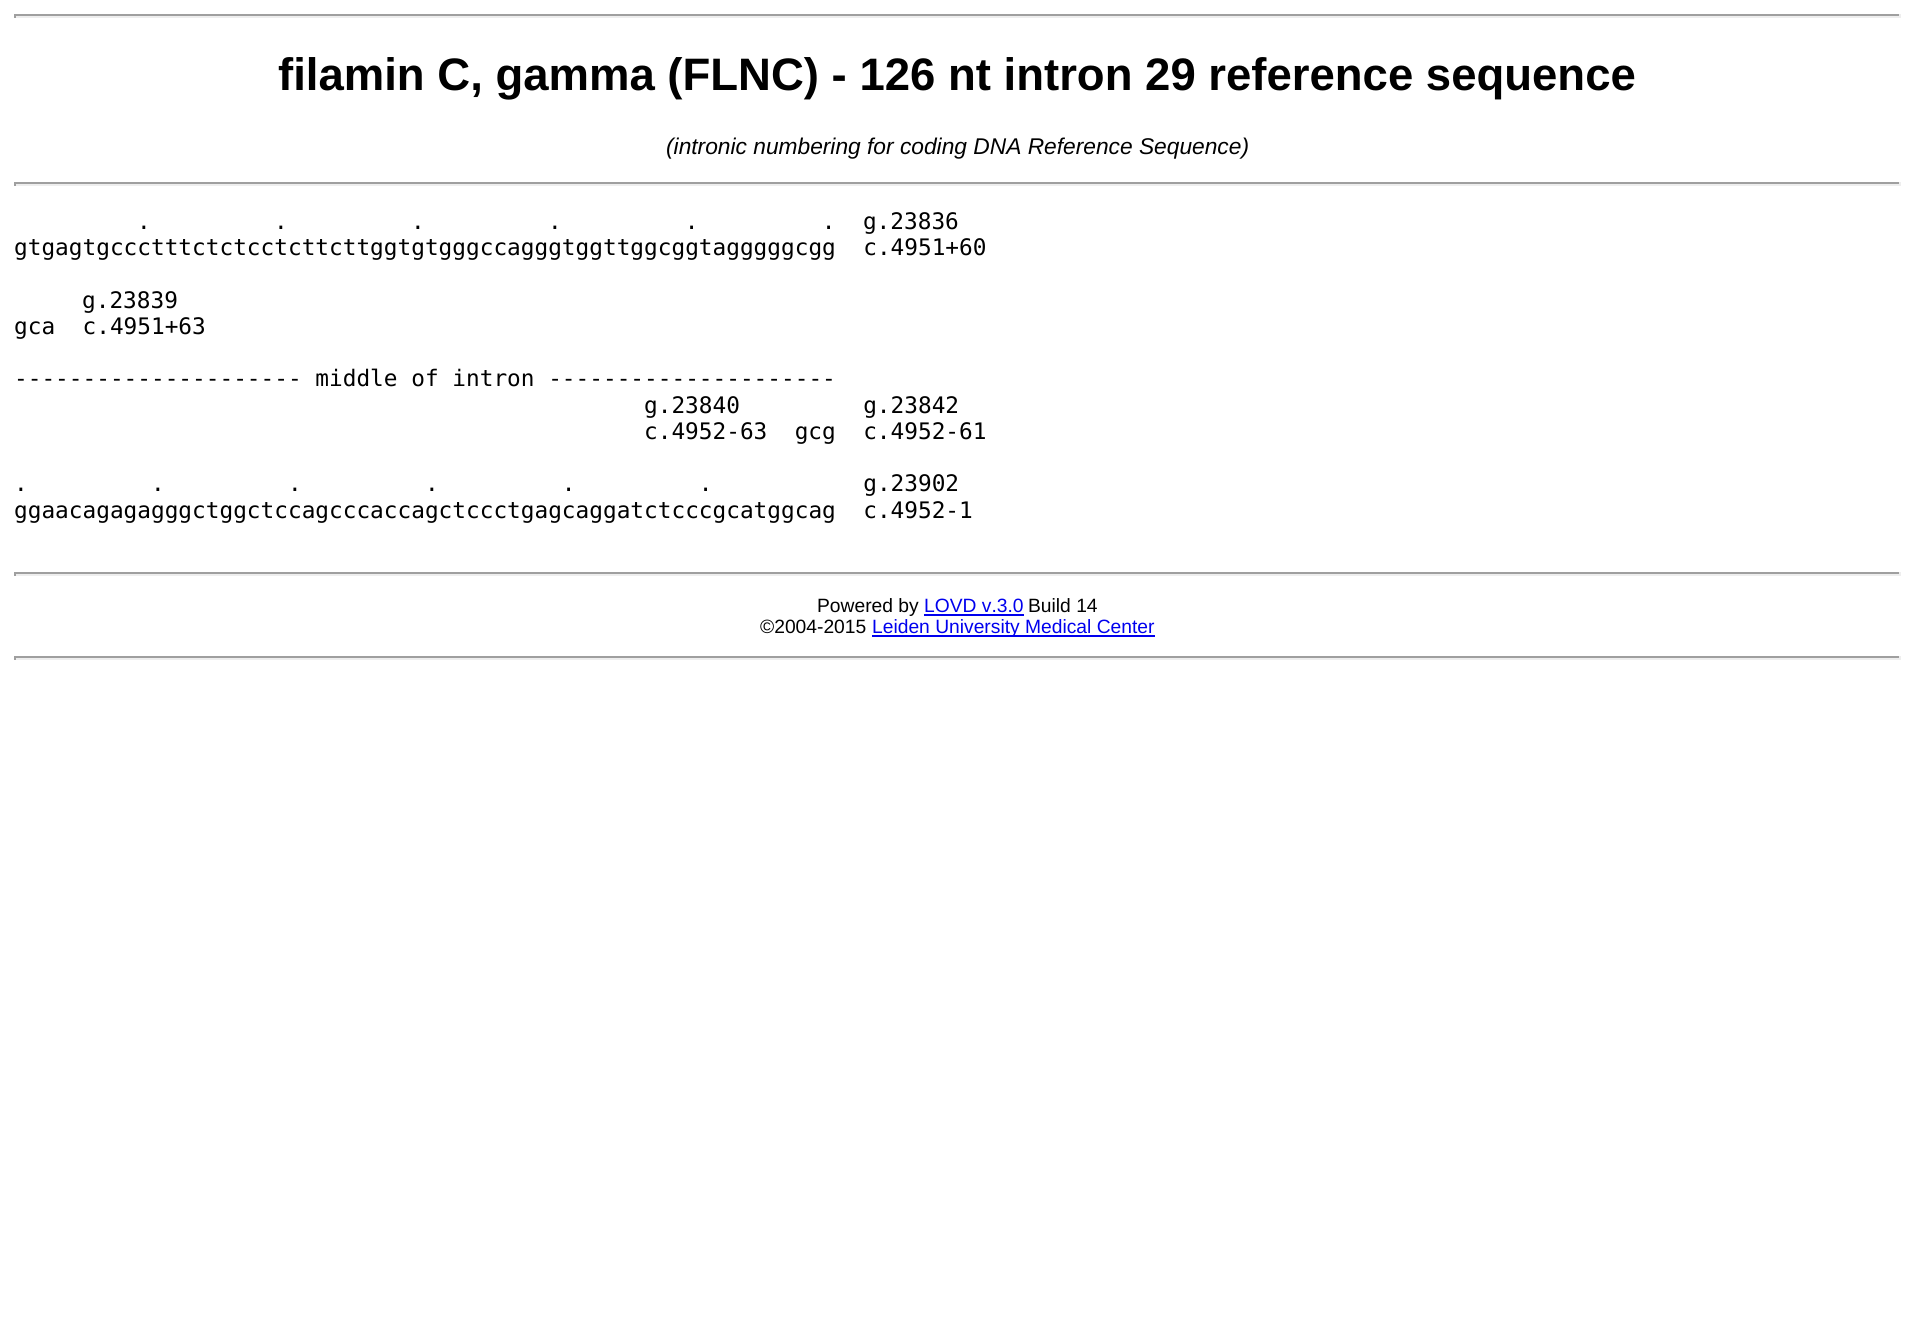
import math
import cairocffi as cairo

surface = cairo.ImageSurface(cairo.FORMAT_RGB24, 1914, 1326)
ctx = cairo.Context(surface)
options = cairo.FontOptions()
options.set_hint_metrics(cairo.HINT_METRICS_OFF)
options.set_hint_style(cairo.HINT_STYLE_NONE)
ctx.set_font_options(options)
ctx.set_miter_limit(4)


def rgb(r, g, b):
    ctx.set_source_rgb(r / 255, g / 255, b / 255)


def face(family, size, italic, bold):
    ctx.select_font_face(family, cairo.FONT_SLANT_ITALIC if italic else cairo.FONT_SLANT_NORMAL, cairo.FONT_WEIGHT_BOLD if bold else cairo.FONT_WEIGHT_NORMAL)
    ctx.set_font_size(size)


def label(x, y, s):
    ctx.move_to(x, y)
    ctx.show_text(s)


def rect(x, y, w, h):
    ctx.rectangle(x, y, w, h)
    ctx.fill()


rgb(255, 255, 255)
ctx.paint()
rgb(159, 159, 159)
rect(14, 14, 1887, 2)
rgb(238, 238, 238)
rect(1899, 14, 2, 4)
rect(14, 16, 1887, 2)
rgb(159, 159, 159)
rect(14, 14, 2, 4)
face('Liberation Sans', 45.5, 0, 1)
rgb(0, 0, 0)
label(278, 90, 'filamin C, gamma (FLNC) - 126 nt intron 29 reference sequence')
face('Liberation Sans', 22.75, 1, 0)
label(666, 154, '(intronic numbering for coding DNA Reference Sequence)')
rgb(159, 159, 159)
rect(14, 182, 1887, 2)
rgb(238, 238, 238)
rect(1899, 182, 2, 4)
rect(14, 184, 1887, 2)
rgb(159, 159, 159)
rect(14, 182, 2, 4)
face('DejaVu Sans Mono', 22.75, 0, 0)
rgb(0, 0, 0)
label(137, 229, '.         .         .         .         .         .  g.23836')
label(14, 255, 'gtgagtgccctttctctcctcttcttggtgtgggccagggtggttggcggtagggggcgg  c.4951+60')
label(82, 308, 'g.23839')
label(14, 334, 'gca  c.4951+63')
label(14, 386, '--------------------- middle of intron ---------------------')
label(644, 413, 'g.23840         g.23842')
label(644, 439, 'c.4952-63  gcg  c.4952-61')
label(14, 491, '.         .         .         .         .         .           g.23902')
label(14, 518, 'ggaacagagagggctggctccagcccaccagctccctgagcaggatctcccgcatggcag  c.4952-1')
rgb(159, 159, 159)
rect(14, 572, 1887, 2)
rgb(238, 238, 238)
rect(1899, 572, 2, 4)
rect(14, 574, 1887, 2)
rgb(159, 159, 159)
rect(14, 572, 2, 4)
face('Liberation Sans', 19.25, 0, 0)
rgb(0, 0, 0)
label(817, 612, 'Powered by')
rgb(0, 0, 238)
label(924, 612, 'LOVD v.3.0')
rect(924, 614, 100, 2)
rgb(0, 0, 0)
label(1028, 612, 'Build 14')
label(760, 633, '©2004-2015')
rgb(0, 0, 238)
rect(872, 635, 283, 2)
label(872, 633, 'Leiden University Medical Center')
rgb(159, 159, 159)
rect(14, 656, 1887, 2)
rgb(238, 238, 238)
rect(1899, 656, 2, 4)
rect(14, 658, 1887, 2)
rgb(159, 159, 159)
rect(14, 656, 2, 4)
surface.write_to_png('render.png')
